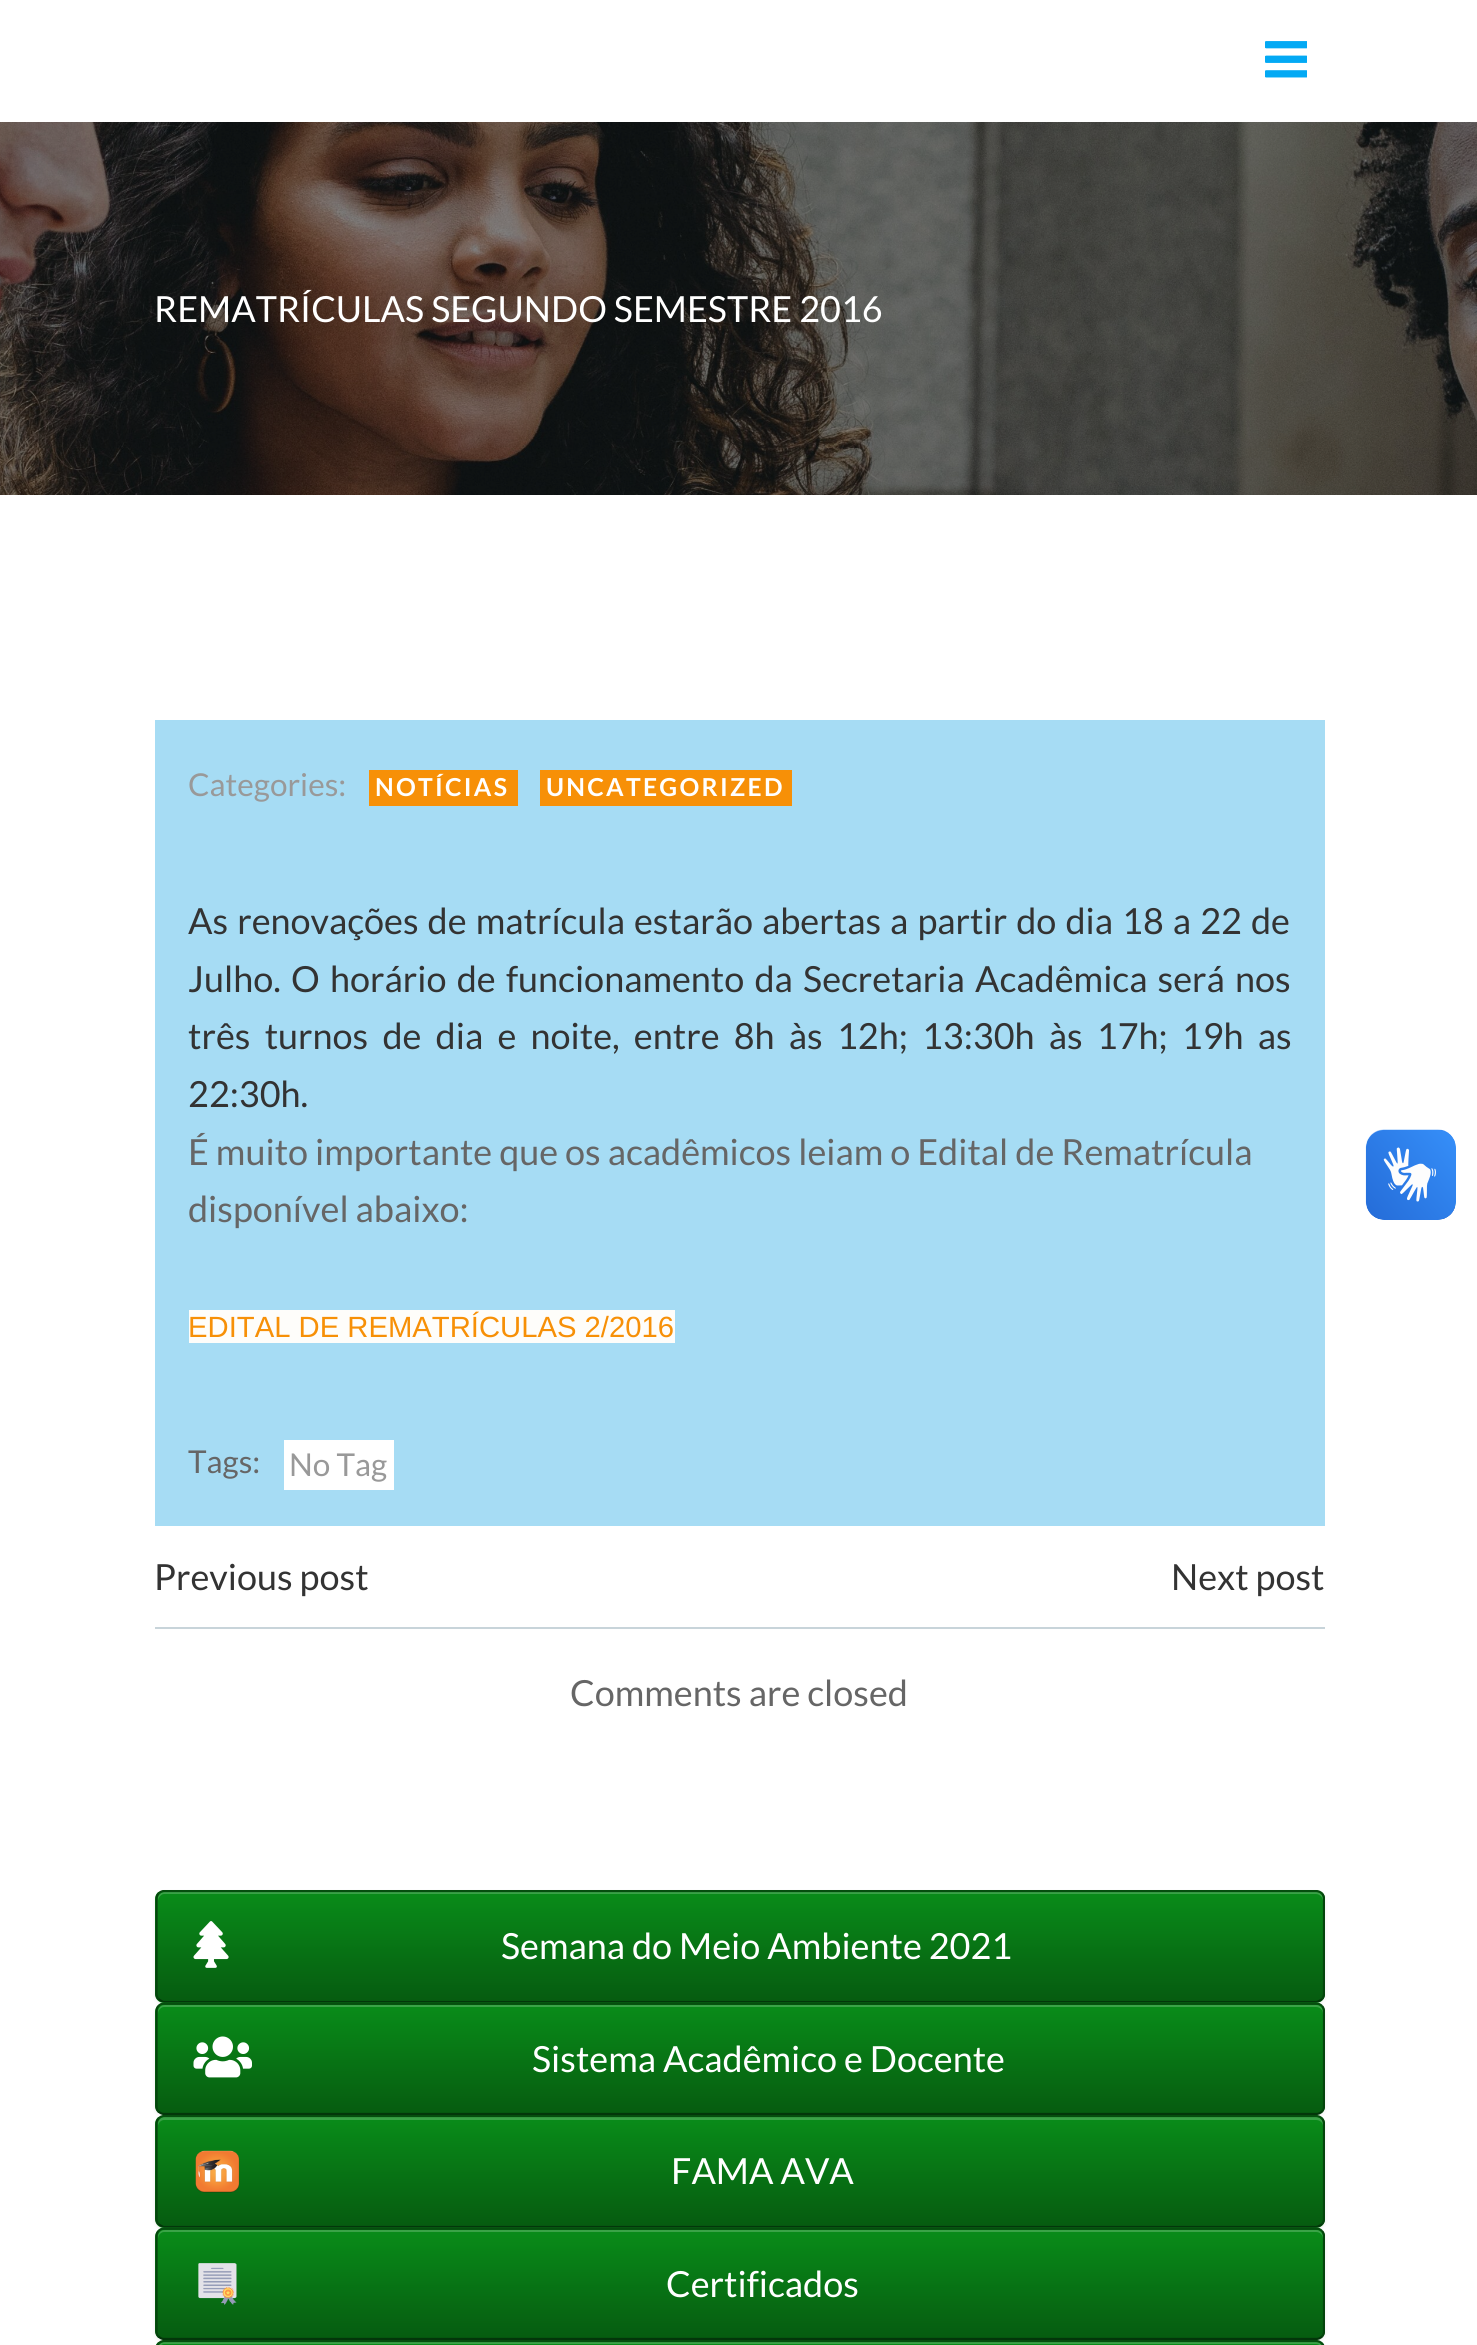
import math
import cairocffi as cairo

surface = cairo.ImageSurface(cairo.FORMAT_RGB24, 1477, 2345)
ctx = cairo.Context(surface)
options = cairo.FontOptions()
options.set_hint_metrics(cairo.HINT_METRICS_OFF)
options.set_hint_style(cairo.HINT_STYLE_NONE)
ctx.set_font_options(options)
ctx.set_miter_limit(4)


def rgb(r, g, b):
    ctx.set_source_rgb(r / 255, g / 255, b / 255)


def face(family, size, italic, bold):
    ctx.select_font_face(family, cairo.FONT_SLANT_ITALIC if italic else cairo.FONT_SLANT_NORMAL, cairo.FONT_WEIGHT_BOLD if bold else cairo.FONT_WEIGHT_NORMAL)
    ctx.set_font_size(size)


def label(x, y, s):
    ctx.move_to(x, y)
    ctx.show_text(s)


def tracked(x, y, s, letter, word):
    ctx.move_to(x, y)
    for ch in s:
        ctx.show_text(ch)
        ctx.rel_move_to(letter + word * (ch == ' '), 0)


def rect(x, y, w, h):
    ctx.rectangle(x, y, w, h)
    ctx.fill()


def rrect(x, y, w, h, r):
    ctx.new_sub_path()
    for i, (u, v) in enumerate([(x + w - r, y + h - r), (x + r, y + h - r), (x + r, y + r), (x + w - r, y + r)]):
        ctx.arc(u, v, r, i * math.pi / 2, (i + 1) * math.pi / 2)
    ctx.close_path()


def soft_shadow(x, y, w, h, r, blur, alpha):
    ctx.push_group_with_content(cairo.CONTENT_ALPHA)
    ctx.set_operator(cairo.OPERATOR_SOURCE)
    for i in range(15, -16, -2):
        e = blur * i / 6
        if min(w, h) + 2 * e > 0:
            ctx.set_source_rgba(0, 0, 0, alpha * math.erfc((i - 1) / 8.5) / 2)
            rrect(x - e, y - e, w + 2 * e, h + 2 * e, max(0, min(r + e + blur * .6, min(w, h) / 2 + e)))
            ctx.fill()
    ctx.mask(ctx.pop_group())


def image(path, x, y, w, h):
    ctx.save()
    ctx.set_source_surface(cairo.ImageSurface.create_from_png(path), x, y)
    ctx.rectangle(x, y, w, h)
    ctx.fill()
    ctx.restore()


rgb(255, 255, 255)
ctx.paint()
image('image0.png', 1265, 41, 42, 37)
image('image1.png', 0, 122, 1477, 373)
face('Lato', 36, 0, 0)
rgb(255, 255, 255)
label(154, 322, 'REMATRÍCULAS SEGUNDO SEMESTRE 2016')
rgb(166, 220, 244)
rect(155, 720, 1170, 806)
face('Lato', 31.5, 0, 0)
rgb(153, 153, 153)
label(188, 796, 'Categories:')
rgb(247, 144, 7)
rect(369, 770, 149, 36)
face('Lato', 24.75, 0, 1)
rgb(255, 255, 255)
tracked(375, 796, 'NOTÍCIAS', 2.25, 0)
rgb(247, 144, 7)
rect(540, 770, 252, 36)
rgb(255, 255, 255)
tracked(546, 796, 'UNCATEGORIZED', 2.25, 0)
face('Lato', 36, 0, 0)
rgb(51, 51, 51)
tracked(188, 934, 'As renovações de matrícula estarão abertas a partir do dia 18 a 22 de', 0, 2.1)
tracked(188, 992, 'Julho. O horário de funcionamento da Secretaria Acadêmica será nos', 0, 3.25)
tracked(188, 1049, 'três turnos de dia e noite, entre 8h às 12h; 13:30h às 17h; 19h as', 0, 7.25)
label(188, 1107, '22:30h.')
rgb(102, 102, 102)
label(188, 1165, 'É muito importante que os acadêmicos leiam o Edital de Rematrícula')
label(188, 1222, 'disponível abaixo:')
rgb(254, 253, 250)
rect(189, 1310, 486, 33)
face('Liberation Sans', 29.25, 0, 0)
rgb(247, 144, 7)
label(188, 1337, 'EDITAL DE REMATRÍCULAS 2/2016')
face('Lato', 31.5, 0, 0)
rgb(102, 102, 102)
label(188, 1473, 'Tags:')
rgb(255, 255, 255)
rect(284, 1440, 110, 50)
rgb(153, 153, 153)
label(289, 1476, 'No Tag')
rgb(200, 212, 218)
rect(155, 1627, 1170, 2)
face('Lato', 36, 0, 0)
rgb(51, 51, 51)
label(154, 1590, 'Previous post')
label(1171, 1590, 'Next post')
rgb(102, 102, 102)
label(570, 1706, 'Comments are closed')
rgb(0, 0, 0)
soft_shadow(155, 1892, 1170, 113, 9, 2, 0.07)
ctx.save()
rrect(155, 1890, 1170, 113, 9)
ctx.clip()
gradient = cairo.LinearGradient(158, 2000, 158, 1892)
gradient.add_color_stop_rgba(0, 0.024, 0.361, 0.063, 1)
gradient.add_color_stop_rgba(1, 0.035, 0.549, 0.098, 1)
ctx.set_source(gradient)
rect(155, 1892, 1170, 108)
gradient = cairo.LinearGradient(158, 2108, 158, 2000)
gradient.add_color_stop_rgba(0, 0.024, 0.361, 0.063, 1)
gradient.add_color_stop_rgba(1, 0.035, 0.549, 0.098, 1)
ctx.set_source(gradient)
rect(155, 2000, 1170, 3)
ctx.restore()
ctx.set_source_rgba(1, 1, 1, 0.2)
ctx.new_path()
ctx.move_to(164, 1894)
ctx.line_to(1316, 1894)
ctx.curve_to(1320, 1894, 1323, 1898, 1323, 1901)
ctx.line_to(1323, 1899)
ctx.curve_to(1323, 1895, 1320, 1892, 1316, 1892)
ctx.line_to(165, 1892)
ctx.curve_to(161, 1892, 158, 1895, 158, 1899)
ctx.line_to(158, 1901)
ctx.curve_to(158, 1898, 161, 1894, 164, 1894)
ctx.close_path()
ctx.fill()
ctx.save()
ctx.rectangle(155, 1890, 1170, 113)
ctx.clip()
ctx.new_path()
ctx.move_to(158.5, 1893.5)
ctx.curve_to(160, 1892, 162, 1891, 164, 1891)
ctx.line_to(1316, 1891)
ctx.curve_to(1318.5, 1891, 1320.5, 1892, 1322, 1893.5)
rgb(5, 78, 14)
ctx.set_line_width(2.2)
ctx.stroke()
ctx.new_path()
ctx.move_to(1322, 1893.5)
ctx.curve_to(1323.5, 1895, 1324, 1897, 1324, 1899)
ctx.line_to(1324, 1993.5)
ctx.curve_to(1324, 1995.5, 1323.5, 1997.5, 1322, 1999)
rgb(4, 68, 12)
ctx.stroke()
ctx.restore()
ctx.new_path()
ctx.move_to(1322, 1999)
ctx.curve_to(1320.5, 2000.5, 1318.5, 2001.5, 1316, 2001.5)
ctx.line_to(164, 2001.5)
ctx.curve_to(162, 2001.5, 160, 2000.5, 158.5, 1999)
rgb(3, 54, 10)
ctx.set_line_width(2.2)
ctx.stroke()
ctx.new_path()
ctx.move_to(158.5, 1999)
ctx.curve_to(157, 1997.5, 156.5, 1995.5, 156.5, 1993.5)
ctx.line_to(156.5, 1899)
ctx.curve_to(156.5, 1897, 157, 1895, 158.5, 1893.5)
rgb(4, 68, 12)
ctx.stroke()
image('image2.png', 193, 1921, 36, 47)
rgb(255, 255, 255)
label(501, 1959, 'Semana do Meio Ambiente 2021')
ctx.save()
ctx.set_fill_rule(cairo.FILL_RULE_EVEN_ODD)
ctx.new_path()
ctx.move_to(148, 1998)
ctx.line_to(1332, 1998)
ctx.line_to(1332, 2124)
ctx.line_to(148, 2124)
ctx.close_path()
ctx.move_to(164, 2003)
ctx.line_to(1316, 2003)
ctx.curve_to(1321, 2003, 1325, 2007, 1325, 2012)
ctx.line_to(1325, 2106)
ctx.curve_to(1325, 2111, 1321, 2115, 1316, 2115)
ctx.line_to(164, 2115)
ctx.curve_to(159, 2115, 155, 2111, 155, 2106)
ctx.line_to(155, 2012)
ctx.curve_to(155, 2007, 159, 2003, 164, 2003)
ctx.close_path()
ctx.clip()
rgb(0, 0, 0)
soft_shadow(155, 2005, 1170, 112, 9, 2, 0.07)
ctx.restore()
ctx.save()
rrect(155, 2003, 1170, 112, 9)
ctx.clip()
gradient = cairo.LinearGradient(158, 2005, 158, 1897)
gradient.add_color_stop_rgba(0, 0.024, 0.361, 0.063, 1)
gradient.add_color_stop_rgba(1, 0.035, 0.549, 0.098, 1)
ctx.set_source(gradient)
rect(155, 2003, 1170, 2)
gradient = cairo.LinearGradient(158, 2113, 158, 2005)
gradient.add_color_stop_rgba(0, 0.024, 0.361, 0.063, 1)
gradient.add_color_stop_rgba(1, 0.035, 0.549, 0.098, 1)
ctx.set_source(gradient)
rect(155, 2005, 1170, 108)
ctx.restore()
rgb(58, 163, 71)
ctx.new_path()
ctx.move_to(164, 2007)
ctx.line_to(1316, 2007)
ctx.curve_to(1320, 2007, 1323, 2010, 1323, 2014)
ctx.line_to(1323, 2012)
ctx.curve_to(1323, 2008, 1320, 2005, 1316, 2005)
ctx.line_to(165, 2005)
ctx.curve_to(161, 2005, 158, 2008, 158, 2012)
ctx.line_to(158, 2014)
ctx.curve_to(158, 2010, 161, 2007, 164, 2007)
ctx.close_path()
ctx.fill()
ctx.save()
ctx.rectangle(155, 2003, 1170, 112)
ctx.clip()
ctx.new_path()
ctx.move_to(158.5, 2006)
ctx.curve_to(160, 2004.5, 162, 2003.5, 164, 2003.5)
ctx.line_to(1316, 2003.5)
ctx.curve_to(1318.5, 2003.5, 1320.5, 2004.5, 1322, 2006)
rgb(5, 78, 14)
ctx.stroke()
ctx.new_path()
ctx.move_to(1322, 2006)
ctx.curve_to(1323.5, 2007.5, 1324, 2009.5, 1324, 2011.5)
ctx.line_to(1324, 2106)
ctx.curve_to(1324, 2108, 1323.5, 2110, 1322, 2111.5)
rgb(4, 68, 12)
ctx.stroke()
ctx.restore()
ctx.new_path()
ctx.move_to(1322, 2111.5)
ctx.curve_to(1320.5, 2113, 1318.5, 2114, 1316, 2114)
ctx.line_to(164, 2114)
ctx.curve_to(162, 2114, 160, 2113, 158.5, 2111.5)
rgb(3, 54, 10)
ctx.stroke()
ctx.new_path()
ctx.move_to(158.5, 2111.5)
ctx.curve_to(157, 2110, 156.5, 2108, 156.5, 2106)
ctx.line_to(156.5, 2011.5)
ctx.curve_to(156.5, 2009.5, 157, 2007.5, 158.5, 2006)
rgb(4, 68, 12)
ctx.stroke()
image('image3.png', 193, 2036, 59, 42)
rgb(255, 255, 255)
label(532, 2072, 'Sistema Acadêmico e Docente')
rgb(0, 0, 0)
soft_shadow(155, 2117, 1170, 113, 9, 2, 0.07)
ctx.save()
rrect(155, 2115, 1170, 113, 9)
ctx.clip()
gradient = cairo.LinearGradient(158, 2225, 158, 2117)
gradient.add_color_stop_rgba(0, 0.024, 0.361, 0.063, 1)
gradient.add_color_stop_rgba(1, 0.035, 0.549, 0.098, 1)
ctx.set_source(gradient)
rect(155, 2117, 1170, 108)
gradient = cairo.LinearGradient(158, 2333, 158, 2225)
gradient.add_color_stop_rgba(0, 0.024, 0.361, 0.063, 1)
gradient.add_color_stop_rgba(1, 0.035, 0.549, 0.098, 1)
ctx.set_source(gradient)
rect(155, 2225, 1170, 3)
ctx.restore()
ctx.set_source_rgba(1, 1, 1, 0.2)
ctx.new_path()
ctx.move_to(164, 2120)
ctx.line_to(1316, 2120)
ctx.curve_to(1320, 2120, 1323, 2123, 1323, 2126)
ctx.line_to(1323, 2124)
ctx.curve_to(1323, 2120, 1320, 2117, 1316, 2117)
ctx.line_to(165, 2117)
ctx.curve_to(161, 2117, 158, 2120, 158, 2124)
ctx.line_to(158, 2126)
ctx.curve_to(158, 2123, 161, 2120, 164, 2120)
ctx.close_path()
ctx.fill()
ctx.save()
ctx.rectangle(155, 2115, 1170, 113)
ctx.clip()
ctx.new_path()
ctx.move_to(158.5, 2118.5)
ctx.curve_to(160, 2117, 162, 2116, 164, 2116)
ctx.line_to(1316, 2116)
ctx.curve_to(1318.5, 2116, 1320.5, 2117, 1322, 2118.5)
rgb(5, 78, 14)
ctx.stroke()
ctx.new_path()
ctx.move_to(1322, 2118.5)
ctx.curve_to(1323.5, 2120, 1324, 2122, 1324, 2124)
ctx.line_to(1324, 2218.5)
ctx.curve_to(1324, 2220.5, 1323.5, 2222.5, 1322, 2224)
rgb(4, 68, 12)
ctx.stroke()
ctx.restore()
ctx.new_path()
ctx.move_to(1322, 2224)
ctx.curve_to(1320.5, 2225.5, 1318.5, 2226.5, 1316, 2226.5)
ctx.line_to(164, 2226.5)
ctx.curve_to(162, 2226.5, 160, 2225.5, 158.5, 2224)
rgb(3, 54, 10)
ctx.stroke()
ctx.new_path()
ctx.move_to(158.5, 2224)
ctx.curve_to(157, 2222.5, 156.5, 2220.5, 156.5, 2218.5)
ctx.line_to(156.5, 2124)
ctx.curve_to(156.5, 2122, 157, 2120, 158.5, 2118.5)
rgb(4, 68, 12)
ctx.stroke()
image('image4.png', 195, 2150, 45, 43)
rgb(255, 255, 255)
label(671, 2184, 'FAMA AVA')
ctx.save()
ctx.set_fill_rule(cairo.FILL_RULE_EVEN_ODD)
ctx.new_path()
ctx.move_to(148, 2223)
ctx.line_to(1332, 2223)
ctx.line_to(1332, 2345)
ctx.line_to(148, 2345)
ctx.close_path()
ctx.move_to(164, 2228)
ctx.line_to(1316, 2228)
ctx.curve_to(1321, 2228, 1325, 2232, 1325, 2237)
ctx.line_to(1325, 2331)
ctx.curve_to(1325, 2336, 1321, 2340, 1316, 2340)
ctx.line_to(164, 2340)
ctx.curve_to(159, 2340, 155, 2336, 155, 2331)
ctx.line_to(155, 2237)
ctx.curve_to(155, 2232, 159, 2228, 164, 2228)
ctx.close_path()
ctx.clip()
rgb(0, 0, 0)
soft_shadow(155, 2230, 1170, 112, 9, 2, 0.07)
ctx.restore()
ctx.save()
rrect(155, 2228, 1170, 112, 9)
ctx.clip()
gradient = cairo.LinearGradient(158, 2230, 158, 2122)
gradient.add_color_stop_rgba(0, 0.024, 0.361, 0.063, 1)
gradient.add_color_stop_rgba(1, 0.035, 0.549, 0.098, 1)
ctx.set_source(gradient)
rect(155, 2228, 1170, 2)
gradient = cairo.LinearGradient(158, 2338, 158, 2230)
gradient.add_color_stop_rgba(0, 0.024, 0.361, 0.063, 1)
gradient.add_color_stop_rgba(1, 0.035, 0.549, 0.098, 1)
ctx.set_source(gradient)
rect(155, 2230, 1170, 108)
ctx.restore()
rgb(58, 163, 71)
ctx.new_path()
ctx.move_to(164, 2232)
ctx.line_to(1316, 2232)
ctx.curve_to(1320, 2232, 1323, 2235, 1323, 2239)
ctx.line_to(1323, 2237)
ctx.curve_to(1323, 2233, 1320, 2230, 1316, 2230)
ctx.line_to(165, 2230)
ctx.curve_to(161, 2230, 158, 2233, 158, 2237)
ctx.line_to(158, 2239)
ctx.curve_to(158, 2235, 161, 2232, 164, 2232)
ctx.close_path()
ctx.fill()
ctx.save()
ctx.rectangle(155, 2228, 1170, 112)
ctx.clip()
ctx.new_path()
ctx.move_to(158.5, 2231)
ctx.curve_to(160, 2229.5, 162, 2228.5, 164, 2228.5)
ctx.line_to(1316, 2228.5)
ctx.curve_to(1318.5, 2228.5, 1320.5, 2229.5, 1322, 2231)
rgb(5, 78, 14)
ctx.stroke()
ctx.new_path()
ctx.move_to(1322, 2231)
ctx.curve_to(1323.5, 2232.5, 1324, 2234.5, 1324, 2236.5)
ctx.line_to(1324, 2331)
ctx.curve_to(1324, 2333, 1323.5, 2335, 1322, 2336.5)
rgb(4, 68, 12)
ctx.stroke()
ctx.restore()
ctx.new_path()
ctx.move_to(1322, 2336.5)
ctx.curve_to(1320.5, 2338, 1318.5, 2339, 1316, 2339)
ctx.line_to(164, 2339)
ctx.curve_to(162, 2339, 160, 2338, 158.5, 2336.5)
rgb(3, 54, 10)
ctx.stroke()
ctx.new_path()
ctx.move_to(158.5, 2336.5)
ctx.curve_to(157, 2335, 156.5, 2333, 156.5, 2331)
ctx.line_to(156.5, 2236.5)
ctx.curve_to(156.5, 2234.5, 157, 2232.5, 158.5, 2231)
rgb(4, 68, 12)
ctx.stroke()
image('image5.png', 198, 2263, 39, 42)
rgb(255, 255, 255)
label(666, 2297, 'Certificados')
ctx.save()
rrect(155, 2340, 1170, 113, 9)
ctx.clip()
gradient = cairo.LinearGradient(158, 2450, 158, 2342)
gradient.add_color_stop_rgba(0, 0.024, 0.361, 0.063, 1)
gradient.add_color_stop_rgba(1, 0.035, 0.549, 0.098, 1)
ctx.set_source(gradient)
rect(155, 2342, 1170, 3)
ctx.restore()
rgb(58, 163, 71)
ctx.new_path()
ctx.move_to(164, 2344)
ctx.line_to(1316, 2344)
ctx.curve_to(1320, 2344, 1323, 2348, 1323, 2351)
ctx.line_to(1323, 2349)
ctx.curve_to(1323, 2345, 1320, 2342, 1316, 2342)
ctx.line_to(165, 2342)
ctx.curve_to(161, 2342, 158, 2345, 158, 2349)
ctx.line_to(158, 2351)
ctx.curve_to(158, 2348, 161, 2344, 164, 2344)
ctx.close_path()
ctx.fill()
ctx.save()
ctx.rectangle(155, 2340, 1170, 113)
ctx.clip()
ctx.new_path()
ctx.move_to(158.5, 2343.5)
ctx.curve_to(160, 2342, 162, 2341, 164, 2341)
ctx.line_to(1316, 2341)
ctx.curve_to(1318.5, 2341, 1320.5, 2342, 1322, 2343.5)
rgb(5, 78, 14)
ctx.stroke()
ctx.restore()
ctx.new_path()
ctx.move_to(1322, 2343.5)
ctx.curve_to(1323.5, 2345, 1324, 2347, 1324, 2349)
ctx.line_to(1324, 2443.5)
ctx.curve_to(1324, 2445.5, 1323.5, 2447.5, 1322, 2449)
rgb(4, 68, 12)
ctx.stroke()
ctx.new_path()
ctx.move_to(158.5, 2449)
ctx.curve_to(157, 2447.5, 156.5, 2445.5, 156.5, 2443.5)
ctx.line_to(156.5, 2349)
ctx.curve_to(156.5, 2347, 157, 2345, 158.5, 2343.5)
ctx.stroke()
image('image6.png', 1365, 1129, 91, 91)
image('image7.png', 1366, 1130, 90, 90)
surface.write_to_png('render.png')
